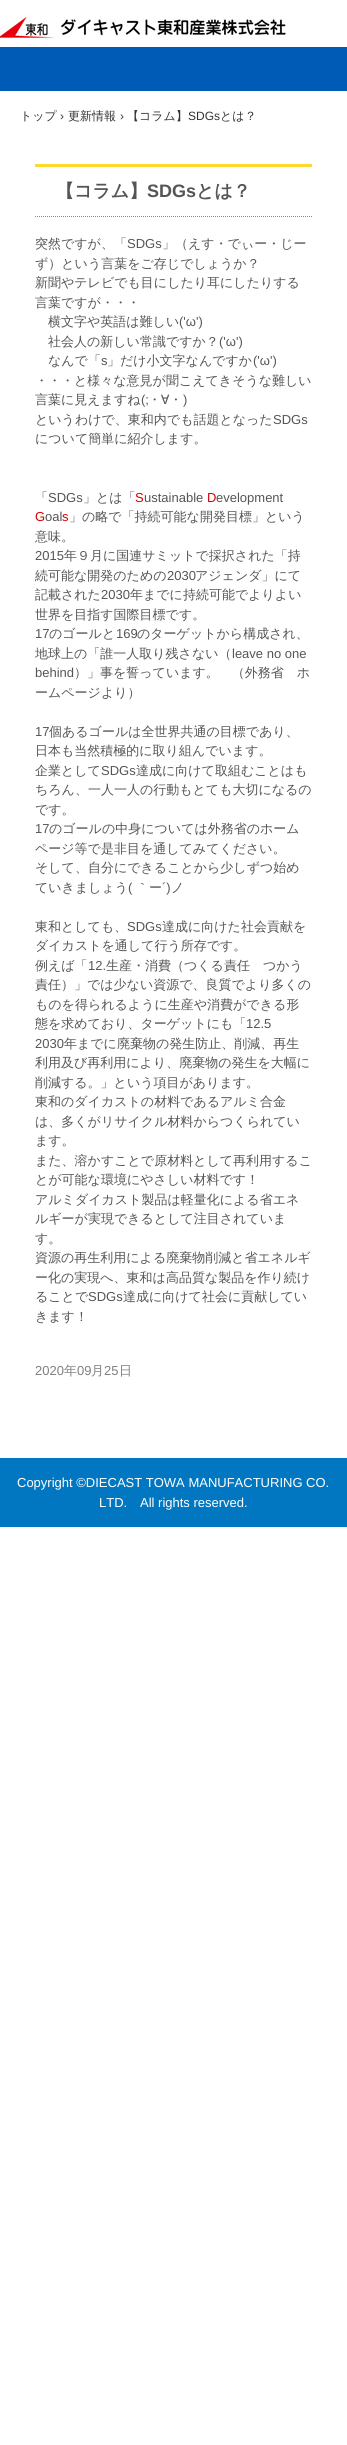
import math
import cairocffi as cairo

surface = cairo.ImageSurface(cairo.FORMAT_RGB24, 347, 2445)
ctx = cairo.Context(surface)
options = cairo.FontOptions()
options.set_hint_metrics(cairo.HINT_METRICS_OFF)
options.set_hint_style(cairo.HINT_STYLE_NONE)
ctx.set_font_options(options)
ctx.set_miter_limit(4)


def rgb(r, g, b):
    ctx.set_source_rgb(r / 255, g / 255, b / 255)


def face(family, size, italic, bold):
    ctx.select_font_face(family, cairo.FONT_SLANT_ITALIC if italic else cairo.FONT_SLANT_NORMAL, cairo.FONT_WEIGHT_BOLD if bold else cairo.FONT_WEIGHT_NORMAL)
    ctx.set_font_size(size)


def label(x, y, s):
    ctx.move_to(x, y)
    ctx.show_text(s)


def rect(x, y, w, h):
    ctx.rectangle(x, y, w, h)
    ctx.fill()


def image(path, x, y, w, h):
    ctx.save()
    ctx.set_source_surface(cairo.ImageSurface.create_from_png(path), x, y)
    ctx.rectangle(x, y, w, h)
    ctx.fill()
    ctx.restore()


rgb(255, 255, 255)
ctx.paint()
image('image0.png', 0, 13, 286, 26)
rgb(0, 91, 182)
rect(0, 47, 347, 44)
face('WenQuanYi Zen Hei Medium', 12, 0, 0)
rgb(51, 51, 51)
label(20, 120, 'トップ')
face('Liberation Sans', 12, 0, 0)
label(60, 120, '›')
face('WenQuanYi Zen Hei Medium', 12, 0, 0)
label(68, 120, '更新情報')
face('Liberation Sans', 12, 0, 0)
label(120, 120, '›')
face('WenQuanYi Zen Hei Medium', 12, 0, 0)
label(127, 120, '【コラム】')
face('Liberation Sans', 12, 0, 0)
label(188, 120, 'SDGs')
face('WenQuanYi Zen Hei Medium', 12, 0, 0)
label(220, 120, 'とは？')
rgb(254, 216, 43)
rect(35, 164, 277, 3)
ctx.new_path()
ctx.move_to(35, 216.5)
ctx.line_to(312, 216.5)
rgb(26, 172, 226)
ctx.set_line_width(1)
ctx.set_dash([1, 1])
ctx.stroke()
face('WenQuanYi Zen Hei', 18, 0, 1)
rgb(85, 85, 85)
label(56, 197, '【コラム】')
face('Liberation Sans', 18, 0, 1)
label(147, 197, 'SDGs')
face('WenQuanYi Zen Hei', 18, 0, 1)
label(196, 197, 'とは？')
face('WenQuanYi Zen Hei Medium', 13, 0, 0)
label(35, 248, '突然ですが、「')
face('Liberation Sans', 13, 0, 0)
label(127, 248, 'SDGs')
face('WenQuanYi Zen Hei Medium', 13, 0, 0)
label(162, 248, '」（えす・でぃー・じー')
label(35, 268, 'ず）という言葉をご存じでしょうか？')
label(35, 287, '新聞やテレビでも目にしたり耳にしたりする')
label(35, 307, '言葉ですが・・・')
label(48, 326, '横文字や英語は難しい')
face('Liberation Sans', 13, 0, 0)
label(179, 326, '(\'ω\')')
face('WenQuanYi Zen Hei Medium', 13, 0, 0)
label(48, 346, '社会人の新しい常識ですか？')
face('Liberation Sans', 13, 0, 0)
label(219, 346, '(\'ω\')')
face('WenQuanYi Zen Hei Medium', 13, 0, 0)
label(48, 365, 'なんで「')
face('Liberation Sans', 13, 0, 0)
label(101, 365, 's')
face('WenQuanYi Zen Hei Medium', 13, 0, 0)
label(107, 365, '」だけ小文字なんですか')
face('Liberation Sans', 13, 0, 0)
label(253, 365, '(\'ω\')')
face('WenQuanYi Zen Hei Medium', 13, 0, 0)
label(35, 385, '・・・と様々な意見が聞こえてきそうな難しい')
label(35, 404, '言葉に見えますね')
face('Liberation Sans', 13, 0, 0)
label(141, 404, '(;')
face('WenQuanYi Zen Hei Medium', 13, 0, 0)
label(148, 404, '・∀・')
face('Liberation Sans', 13, 0, 0)
label(183, 404, ')')
face('WenQuanYi Zen Hei Medium', 13, 0, 0)
label(35, 424, 'というわけで、東和内でも話題となった')
face('Liberation Sans', 13, 0, 0)
label(273, 424, 'SDGs')
face('WenQuanYi Zen Hei Medium', 13, 0, 0)
label(35, 443, 'について簡単に紹介します。')
label(35, 502, '「')
face('Liberation Sans', 13, 0, 0)
label(48, 502, 'SDGs')
face('WenQuanYi Zen Hei Medium', 13, 0, 0)
label(83, 502, '」とは「')
face('Liberation Sans', 13, 0, 0)
rgb(219, 0, 0)
label(135, 502, 'S')
rgb(85, 85, 85)
label(144, 502, 'ustainable')
rgb(219, 0, 0)
label(207, 502, 'D')
rgb(85, 85, 85)
label(216, 502, 'evelopment')
rgb(219, 0, 0)
label(35, 521, 'G')
rgb(85, 85, 85)
label(45, 521, 'oal')
rgb(219, 0, 0)
label(62, 521, 's')
face('WenQuanYi Zen Hei Medium', 13, 0, 0)
rgb(85, 85, 85)
label(69, 521, '」の略で「持続可能な開発目標」という')
label(35, 541, '意味。')
face('Liberation Sans', 13, 0, 0)
label(35, 560, '2015')
face('WenQuanYi Zen Hei Medium', 13, 0, 0)
label(64, 560, '年９月に国連サミットで採択された「持')
label(35, 580, '続可能な開発のための')
face('Liberation Sans', 13, 0, 0)
label(167, 580, '2030')
face('WenQuanYi Zen Hei Medium', 13, 0, 0)
label(195, 580, 'アジェンダ」にて')
label(35, 599, '記載された')
face('Liberation Sans', 13, 0, 0)
label(101, 599, '2030')
face('WenQuanYi Zen Hei Medium', 13, 0, 0)
label(130, 599, '年までに持続可能でよりよい')
label(35, 619, '世界を目指す国際目標です。')
face('Liberation Sans', 13, 0, 0)
label(35, 638, '17')
face('WenQuanYi Zen Hei Medium', 13, 0, 0)
label(49, 638, 'のゴールと')
face('Liberation Sans', 13, 0, 0)
label(116, 638, '169')
face('WenQuanYi Zen Hei Medium', 13, 0, 0)
label(137, 638, 'のターゲットから構成され、')
label(35, 658, '地球上の「誰一人取り残さない（')
face('Liberation Sans', 13, 0, 0)
label(232, 658, 'leave no one')
label(35, 677, 'behind')
face('WenQuanYi Zen Hei Medium', 13, 0, 0)
label(74, 677, '）」事を誓っています。　（外務省　ホ')
label(35, 697, 'ームページより）')
face('Liberation Sans', 13, 0, 0)
label(35, 736, '17')
face('WenQuanYi Zen Hei Medium', 13, 0, 0)
label(49, 736, '個あるゴールは全世界共通の目標であり、')
label(35, 755, '日本も当然積極的に取り組んでいます。')
label(35, 775, '企業として')
face('Liberation Sans', 13, 0, 0)
label(101, 775, 'SDGs')
face('WenQuanYi Zen Hei Medium', 13, 0, 0)
label(136, 775, '達成に向けて取組むことはも')
label(35, 794, 'ちろん、一人一人の行動もとても大切になるの')
label(35, 814, 'です。')
face('Liberation Sans', 13, 0, 0)
label(35, 833, '17')
face('WenQuanYi Zen Hei Medium', 13, 0, 0)
label(49, 833, 'のゴールの中身については外務省のホーム')
label(35, 853, 'ページ等で是非目を通してみてください。')
label(35, 872, 'そして、自分にできることから少しずつ始め')
label(35, 892, 'ていきましょう')
face('Liberation Sans', 13, 0, 0)
label(128, 892, '(')
face('WenQuanYi Zen Hei Medium', 13, 0, 0)
label(136, 892, '｀ー')
face('Liberation Sans', 13, 0, 0)
label(162, 892, '´)')
face('WenQuanYi Zen Hei Medium', 13, 0, 0)
label(171, 892, 'ノ')
label(35, 931, '東和としても、')
face('Liberation Sans', 13, 0, 0)
label(127, 931, 'SDGs')
face('WenQuanYi Zen Hei Medium', 13, 0, 0)
label(162, 931, '達成に向けた社会貢献を')
label(35, 950, 'ダイカストを通して行う所存です。')
label(35, 970, '例えば「')
face('Liberation Sans', 13, 0, 0)
label(88, 970, '12.')
face('WenQuanYi Zen Hei Medium', 13, 0, 0)
label(106, 970, '生産・消費（つくる責任　つかう')
label(35, 989, '責任）」では少ない資源で、良質でより多くの')
label(35, 1009, 'ものを得られるように生産や消費ができる形')
label(35, 1028, '態を求めており、ターゲットにも「')
face('Liberation Sans', 13, 0, 0)
label(246, 1028, '12.5')
label(35, 1048, '2030')
face('WenQuanYi Zen Hei Medium', 13, 0, 0)
label(64, 1048, '年までに廃棄物の発生防止、削減、再生')
label(35, 1067, '利用及び再利用により、廃棄物の発生を大幅に')
label(35, 1087, '削減する。」という項目があります。')
label(35, 1106, '東和のダイカストの材料であるアルミ合金')
label(35, 1126, 'は、多くがリサイクル材料からつくられてい')
label(35, 1145, 'ます。')
label(35, 1165, 'また、溶かすことで原材料として再利用するこ')
label(35, 1184, 'とが可能な環境にやさしい材料です！')
label(35, 1204, 'アルミダイカスト製品は軽量化による省エネ')
label(35, 1223, 'ルギーが実現できるとして注目されていま')
label(35, 1243, 'す。')
label(35, 1262, '資源の再生利用による廃棄物削減と省エネルギ')
label(35, 1282, 'ー化の実現へ、東和は高品質な製品を作り続け')
label(35, 1301, 'ることで')
face('Liberation Sans', 13, 0, 0)
label(88, 1301, 'SDGs')
face('WenQuanYi Zen Hei Medium', 13, 0, 0)
label(123, 1301, '達成に向けて社会に貢献してい')
label(35, 1321, 'きます！')
face('Liberation Sans', 13, 0, 0)
rgb(128, 128, 128)
label(35, 1375, '2020')
face('WenQuanYi Zen Hei Medium', 13, 0, 0)
label(64, 1375, '年')
face('Liberation Sans', 13, 0, 0)
label(77, 1375, '09')
face('WenQuanYi Zen Hei Medium', 13, 0, 0)
label(91, 1375, '月')
face('Liberation Sans', 13, 0, 0)
label(104, 1375, '25')
face('WenQuanYi Zen Hei Medium', 13, 0, 0)
label(119, 1375, '日')
rgb(1, 119, 193)
rect(0, 1458, 347, 69)
face('Liberation Sans', 13, 0, 0)
rgb(255, 255, 255)
label(17, 1487, 'Copyright ©DIECAST TOWA MANUFACTURING CO.')
label(99, 1507, 'LTD.')
label(140, 1507, 'All rights reserved.')
surface.write_to_png('render.png')
